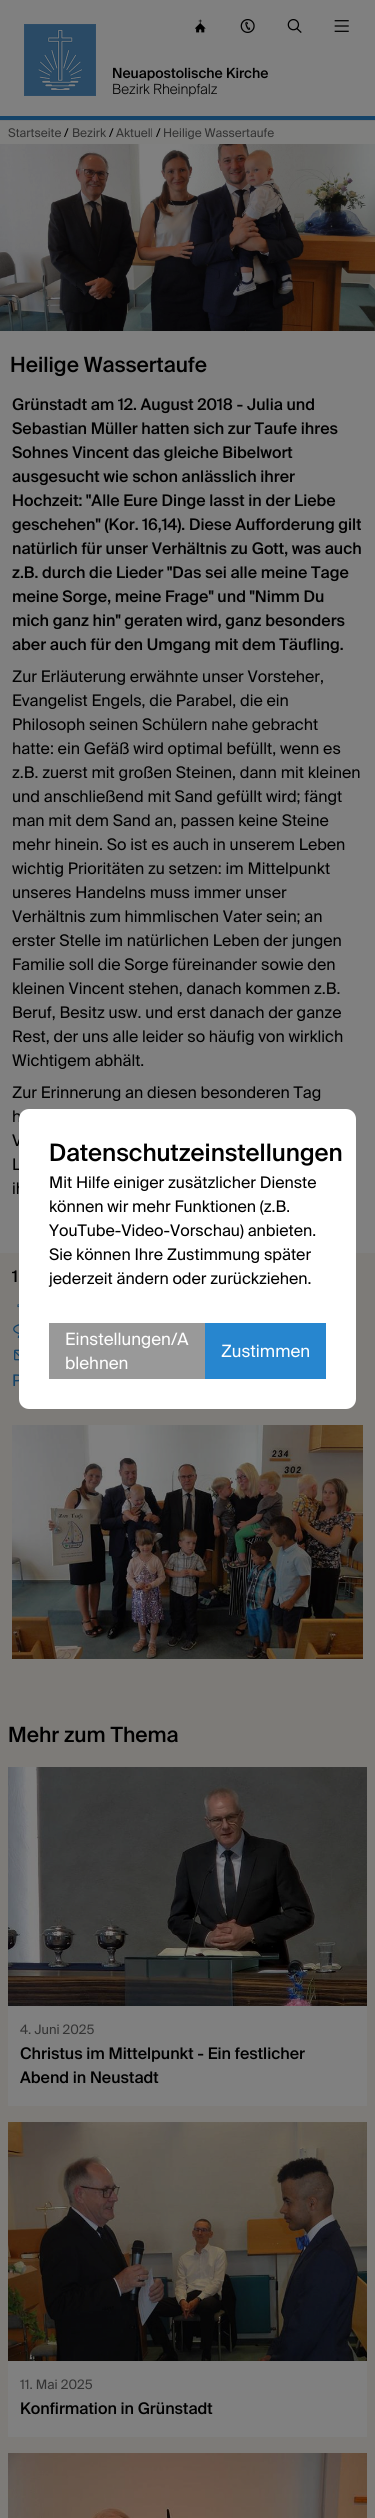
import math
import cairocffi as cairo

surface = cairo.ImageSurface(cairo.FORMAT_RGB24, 375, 2518)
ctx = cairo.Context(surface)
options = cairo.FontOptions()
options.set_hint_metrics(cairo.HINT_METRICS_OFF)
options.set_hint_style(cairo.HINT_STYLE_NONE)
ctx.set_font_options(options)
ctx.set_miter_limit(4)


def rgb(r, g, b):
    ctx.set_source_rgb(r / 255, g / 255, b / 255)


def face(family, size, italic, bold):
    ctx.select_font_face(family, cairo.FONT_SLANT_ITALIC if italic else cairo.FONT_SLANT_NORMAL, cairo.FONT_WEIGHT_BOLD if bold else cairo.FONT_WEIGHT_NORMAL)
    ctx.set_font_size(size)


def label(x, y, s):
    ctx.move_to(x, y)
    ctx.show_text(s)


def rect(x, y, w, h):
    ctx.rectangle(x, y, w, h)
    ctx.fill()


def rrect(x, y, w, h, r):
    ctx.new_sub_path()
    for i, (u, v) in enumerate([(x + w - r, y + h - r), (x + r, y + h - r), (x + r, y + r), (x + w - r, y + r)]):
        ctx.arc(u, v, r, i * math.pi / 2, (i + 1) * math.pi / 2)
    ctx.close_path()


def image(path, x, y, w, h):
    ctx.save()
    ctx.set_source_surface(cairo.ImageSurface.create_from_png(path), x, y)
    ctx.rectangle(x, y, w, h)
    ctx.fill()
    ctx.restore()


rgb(125, 123, 120)
ctx.paint()
rgb(128, 128, 128)
rect(0, 0, 375, 116)
rgb(20, 67, 104)
rect(0, 116, 375, 4)
image('image0.png', 24, 24, 72, 72)
face('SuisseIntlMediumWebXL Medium', 14, 0, 0)
rgb(0, 0, 0)
label(112, 78, 'Neuapostolische Kirche')
image('image1.png', 195, 19, 11, 14)
image('image2.png', 240, 19, 15, 14)
image('image3.png', 287, 19, 15, 14)
image('image4.png', 334, 20, 15, 12)
face('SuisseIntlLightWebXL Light', 14, 0, 0)
label(112, 94, 'Bezirk Rheinpfalz')
rgb(119, 119, 119)
rect(0, 120, 375, 1)
rgb(127, 127, 126)
rect(0, 121, 375, 23)
face('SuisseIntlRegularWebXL', 12, 0, 0)
rgb(51, 51, 51)
label(8, 137, 'Startseite')
rgb(0, 0, 0)
label(64, 137, '/')
rgb(51, 51, 51)
label(72, 137, 'Bezirk')
rgb(0, 0, 0)
label(109, 137, '/')
rgb(51, 51, 51)
label(116, 137, 'Aktuell')
rgb(0, 0, 0)
label(156, 137, '/')
rgb(51, 51, 51)
label(163, 137, 'Heilige Wassertaufe')
image('image5.png', 0, 144, 375, 187)
rgb(128, 128, 128)
rect(0, 331, 375, 922)
face('SuisseIntlMediumWebXL Medium', 21, 0, 0)
rgb(0, 0, 0)
label(10, 372, 'Heilige Wassertaufe')
face('SuisseIntlMediumWebXL Medium', 16, 0, 0)
label(12, 410, 'Grünstadt am 12. August 2018 - Julia und')
label(12, 434, 'Sebastian Müller hatten sich zur Taufe ihres')
label(12, 458, 'Sohnes Vincent das gleiche Bibelwort')
label(12, 482, 'ausgesucht wie schon anlässlich ihrer')
label(12, 506, 'Hochzeit: "Alle Eure Dinge lasst in der Liebe')
label(12, 530, 'geschehen" (Kor. 16,14). Diese Aufforderung gilt')
label(12, 554, 'natürlich für unser Verhältnis zu Gott, was auch')
label(12, 578, 'z.B. durch die Lieder "Das sei alle meine Tage')
label(12, 602, 'meine Sorge, meine Frage" und "Nimm Du')
label(12, 626, 'mich ganz hin" geraten wird, ganz besonders')
label(12, 650, 'aber auch für den Umgang mit dem Täufling.')
face('SuisseIntlRegularWebXL', 16, 0, 0)
label(12, 682, 'Zur Erläuterung erwähnte unser Vorsteher,')
label(12, 706, 'Evangelist Engels, die Parabel, die ein')
label(12, 730, 'Philosoph seinen Schülern nahe gebracht')
label(12, 754, 'hatte: ein Gefäß wird optimal befüllt, wenn es')
label(12, 778, 'z.B. zuerst mit großen Steinen, dann mit kleinen')
label(12, 802, 'und anschließend mit Sand gefüllt wird; fängt')
label(12, 826, 'man mit dem Sand an, passen keine Steine')
label(12, 850, 'mehr hinein. So ist es auch in unserem Leben')
label(12, 874, 'wichtig Prioritäten zu setzen: im Mittelpunkt')
label(12, 898, 'unseres Handelns muss immer unser')
label(12, 922, 'Verhältnis zum himmlischen Vater sein; an')
label(12, 946, 'erster Stelle im natürlichen Leben der jungen')
label(12, 970, 'Familie soll die Sorge füreinander sowie den')
label(12, 994, 'kleinen Vincent stehen, danach kommen z.B.')
label(12, 1018, 'Beruf, Besitz usw. und erst danach der ganze')
label(12, 1042, 'Rest, der uns alle leider so häufig von wirklich')
label(12, 1066, 'Wichtigem abhält.')
label(12, 1098, 'Zur Erinnerung an diesen besonderen Tag')
label(12, 1122, 'h')
label(12, 1146, 'V')
label(12, 1170, 'L')
label(12, 1194, 'ih')
face('SuisseIntlMediumWebXL Medium', 16, 0, 0)
label(12, 1282, '1')
image('image6.png', 17, 1304, 2, 4)
image('image7.png', 13, 1324, 6, 14)
image('image8.png', 14, 1349, 5, 12)
face('SuisseIntlRegularWebXL', 16, 0, 0)
rgb(20, 67, 104)
label(12, 1386, 'P')
image('image9.png', 12, 1425, 351, 234)
face('SuisseIntlMediumWebXL Medium', 21, 0, 0)
rgb(0, 0, 0)
label(8, 1742, 'Mehr zum Thema')
rgb(128, 128, 128)
rect(8, 2006, 359, 100)
image('image10.png', 8, 1767, 359, 239)
face('SuisseIntlRegularWebXL', 13, 0, 0)
rgb(51, 51, 51)
label(20, 2034, '4. Juni 2025')
face('SuisseIntlMediumWebXL Medium', 16, 0, 0)
rgb(0, 0, 0)
label(20, 2059, 'Christus im Mittelpunkt - Ein festlicher')
label(20, 2083, 'Abend in Neustadt')
rgb(128, 128, 128)
rect(8, 2361, 359, 76)
image('image11.png', 8, 2122, 359, 239)
face('SuisseIntlRegularWebXL', 13, 0, 0)
rgb(51, 51, 51)
label(20, 2389, '11. Mai 2025')
face('SuisseIntlMediumWebXL Medium', 16, 0, 0)
rgb(0, 0, 0)
label(20, 2414, 'Konfirmation in Grünstadt')
image('image12.png', 8, 2453, 359, 65)
rgb(255, 255, 255)
rrect(19, 1109, 337, 300, 10)
ctx.fill()
face('SuisseIntlMediumWebXL Medium', 24, 0, 0)
rgb(0, 0, 0)
label(49, 1161, 'Datenschutzeinstellungen')
face('SuisseIntlRegularWebXL', 16, 0, 0)
label(49, 1188, 'Mit Hilfe einiger zusätzlicher Dienste')
label(49, 1212, 'können wir mehr Funktionen (z.B.')
label(49, 1236, 'YouTube-Video-Vorschau) anbieten.')
label(49, 1260, 'Sie können Ihre Zustimmung später')
label(49, 1284, 'jederzeit ändern oder zurückziehen.')
rgb(153, 153, 153)
rect(49, 1323, 156, 56)
face('SuisseIntlRegularWebXL', 17, 0, 0)
rgb(255, 255, 255)
label(65, 1345, 'Einstellungen/A')
label(65, 1369, 'blehnen')
rgb(39, 134, 207)
rect(205, 1323, 121, 56)
rgb(255, 255, 255)
label(221, 1357, 'Zustimmen')
surface.write_to_png('render.png')
